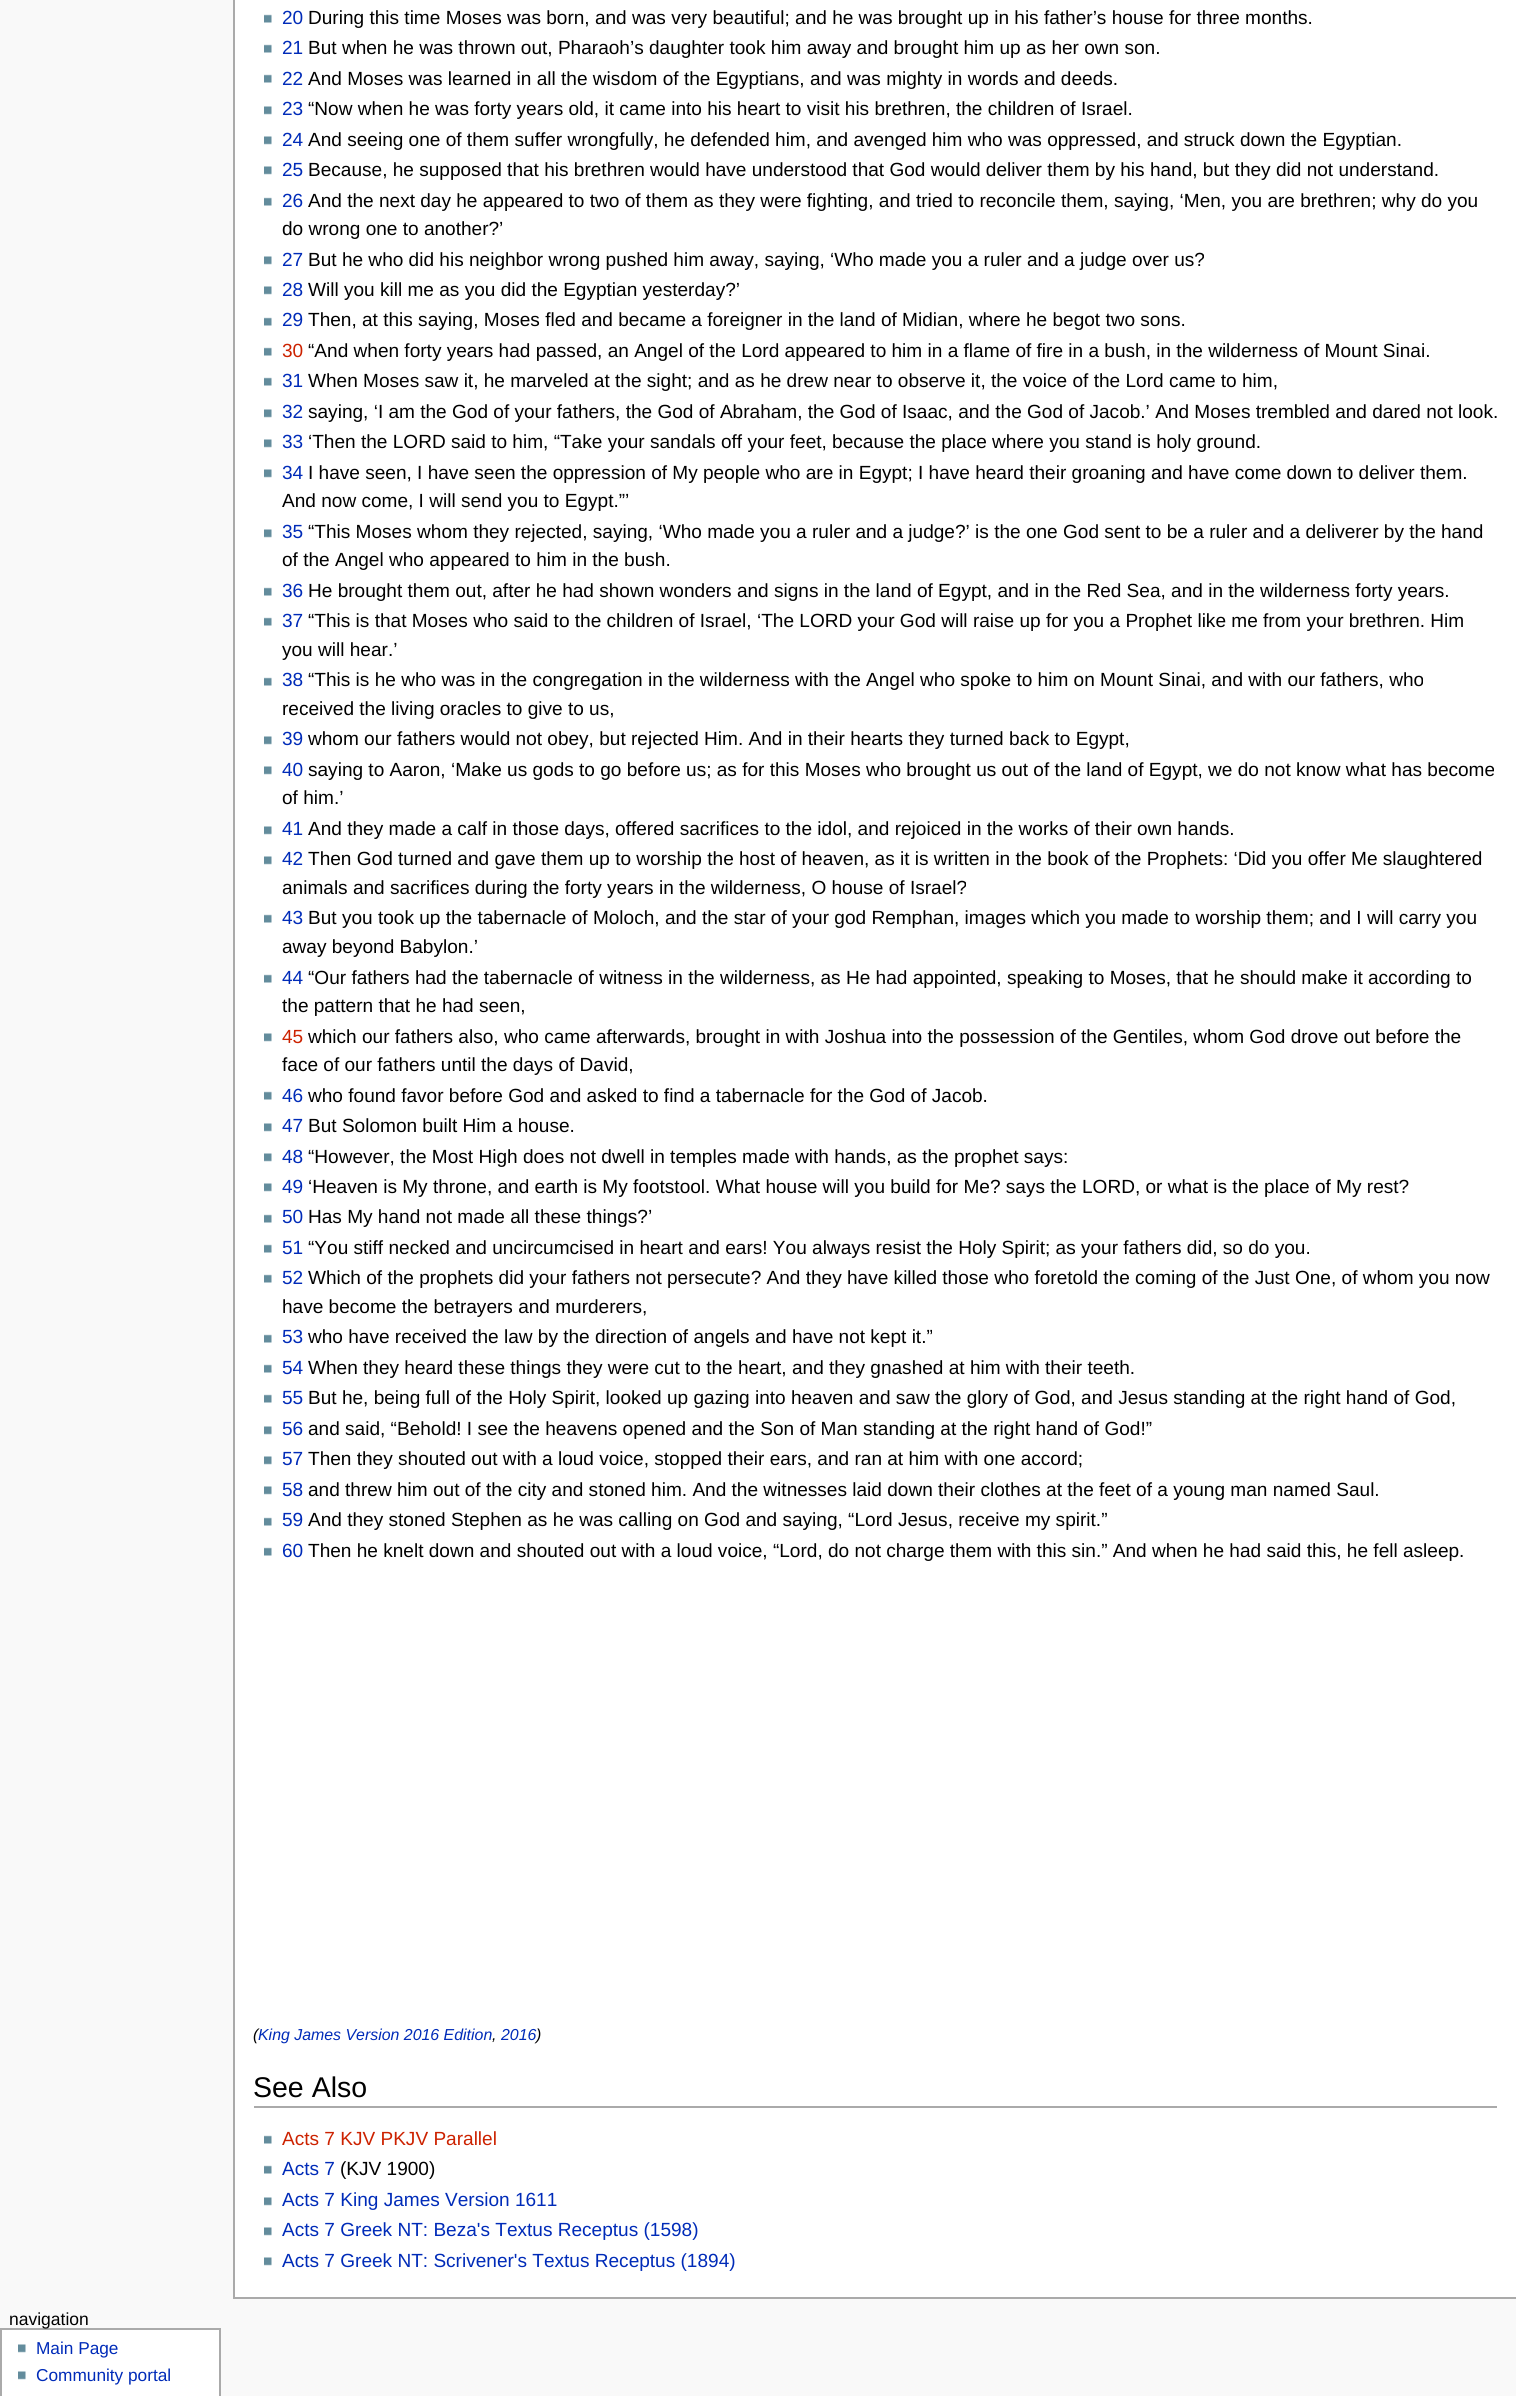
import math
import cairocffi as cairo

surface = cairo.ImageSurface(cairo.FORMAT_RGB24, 1516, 2396)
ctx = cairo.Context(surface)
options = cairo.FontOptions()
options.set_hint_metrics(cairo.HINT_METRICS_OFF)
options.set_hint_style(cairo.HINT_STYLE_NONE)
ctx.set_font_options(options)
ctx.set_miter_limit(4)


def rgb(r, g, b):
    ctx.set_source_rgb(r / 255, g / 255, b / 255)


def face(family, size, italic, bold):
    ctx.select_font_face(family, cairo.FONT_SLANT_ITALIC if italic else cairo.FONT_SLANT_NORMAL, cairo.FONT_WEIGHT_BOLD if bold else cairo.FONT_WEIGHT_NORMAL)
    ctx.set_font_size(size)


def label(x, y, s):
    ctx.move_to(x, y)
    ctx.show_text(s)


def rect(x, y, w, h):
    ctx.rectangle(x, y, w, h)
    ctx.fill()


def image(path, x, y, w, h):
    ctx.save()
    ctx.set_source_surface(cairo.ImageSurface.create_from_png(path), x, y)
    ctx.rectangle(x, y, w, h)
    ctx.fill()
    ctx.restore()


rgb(249, 249, 249)
ctx.paint()
rgb(255, 255, 255)
rect(235, 0, 1281, 2297)
rgb(170, 170, 170)
rect(233, 2297, 1283, 2)
rect(233, 0, 2, 2298)
image('image0.png', 264, 14, 8, 9)
face('Liberation Sans', 19.05, 0, 0)
rgb(0, 43, 184)
label(282, 24, '20')
rgb(0, 0, 0)
label(308, 24, 'During this time Moses was born, and was very beautiful; and he was brought up in his father’s house for three months.')
image('image0.png', 264, 44, 8, 9)
rgb(0, 43, 184)
label(282, 54, '21')
rgb(0, 0, 0)
label(308, 54, 'But when he was thrown out, Pharaoh’s daughter took him away and brought him up as her own son.')
image('image0.png', 264, 74, 8, 9)
rgb(0, 43, 184)
label(282, 85, '22')
rgb(0, 0, 0)
label(308, 85, 'And Moses was learned in all the wisdom of the Egyptians, and was mighty in words and deeds.')
image('image1.png', 264, 106, 8, 9)
rgb(0, 43, 184)
label(282, 115, '23')
rgb(0, 0, 0)
label(308, 115, '“Now when he was forty years old, it came into his heart to visit his brethren, the children of Israel.')
image('image1.png', 264, 136, 8, 9)
rgb(0, 43, 184)
label(282, 146, '24')
rgb(0, 0, 0)
label(308, 146, 'And seeing one of them suffer wrongfully, he defended him, and avenged him who was oppressed, and struck down the Egyptian.')
image('image1.png', 264, 166, 8, 9)
rgb(0, 43, 184)
label(282, 176, '25')
rgb(0, 0, 0)
label(308, 176, 'Because, he supposed that his brethren would have understood that God would deliver them by his hand, but they did not understand.')
image('image0.png', 264, 197, 8, 9)
rgb(0, 43, 184)
label(282, 207, '26')
rgb(0, 0, 0)
label(308, 207, 'And the next day he appeared to two of them as they were fighting, and tried to reconcile them, saying, ‘Men, you are brethren; why do you')
label(282, 235, 'do wrong one to another?’')
image('image1.png', 264, 256, 8, 9)
rgb(0, 43, 184)
label(282, 266, '27')
rgb(0, 0, 0)
label(308, 266, 'But he who did his neighbor wrong pushed him away, saying, ‘Who made you a ruler and a judge over us?')
image('image1.png', 264, 286, 8, 9)
rgb(0, 43, 184)
label(282, 296, '28')
rgb(0, 0, 0)
label(308, 296, 'Will you kill me as you did the Egyptian yesterday?’')
image('image0.png', 264, 317, 8, 9)
rgb(0, 43, 184)
label(282, 326, '29')
rgb(0, 0, 0)
label(308, 326, 'Then, at this saying, Moses fled and became a foreigner in the land of Midian, where he begot two sons.')
image('image0.png', 264, 347, 8, 9)
rgb(204, 34, 0)
label(282, 357, '30')
rgb(0, 0, 0)
label(308, 357, '“And when forty years had passed, an Angel of the Lord appeared to him in a flame of fire in a bush, in the wilderness of Mount Sinai.')
image('image0.png', 264, 377, 8, 9)
rgb(0, 43, 184)
label(282, 387, '31')
rgb(0, 0, 0)
label(308, 387, 'When Moses saw it, he marveled at the sight; and as he drew near to observe it, the voice of the Lord came to him,')
image('image1.png', 264, 409, 8, 9)
rgb(0, 43, 184)
label(282, 418, '32')
rgb(0, 0, 0)
label(308, 418, 'saying, ‘I am the God of your fathers, the God of Abraham, the God of Isaac, and the God of Jacob.’ And Moses trembled and dared not look.')
image('image1.png', 264, 439, 8, 9)
rgb(0, 43, 184)
label(282, 448, '33')
rgb(0, 0, 0)
label(308, 448, '‘Then the LORD said to him, “Take your sandals off your feet, because the place where you stand is holy ground.')
image('image1.png', 264, 469, 8, 9)
rgb(0, 43, 184)
label(282, 479, '34')
rgb(0, 0, 0)
label(308, 479, 'I have seen, I have seen the oppression of My people who are in Egypt; I have heard their groaning and have come down to deliver them.')
label(282, 507, 'And now come, I will send you to Egypt.”’')
image('image1.png', 264, 529, 8, 9)
rgb(0, 43, 184)
label(282, 538, '35')
rgb(0, 0, 0)
label(308, 538, '“This Moses whom they rejected, saying, ‘Who made you a ruler and a judge?’ is the one God sent to be a ruler and a deliverer by the hand')
label(282, 566, 'of the Angel who appeared to him in the bush.')
image('image0.png', 264, 587, 8, 9)
rgb(0, 43, 184)
label(282, 597, '36')
rgb(0, 0, 0)
label(308, 597, 'He brought them out, after he had shown wonders and signs in the land of Egypt, and in the Red Sea, and in the wilderness forty years.')
image('image0.png', 264, 617, 8, 9)
rgb(0, 43, 184)
label(282, 627, '37')
rgb(0, 0, 0)
label(308, 627, '“This is that Moses who said to the children of Israel, ‘The LORD your God will raise up for you a Prophet like me from your brethren. Him')
label(282, 656, 'you will hear.’')
image('image0.png', 264, 677, 8, 9)
rgb(0, 43, 184)
label(282, 686, '38')
rgb(0, 0, 0)
label(308, 686, '“This is he who was in the congregation in the wilderness with the Angel who spoke to him on Mount Sinai, and with our fathers, who')
label(282, 715, 'received the living oracles to give to us,')
image('image1.png', 264, 736, 8, 9)
rgb(0, 43, 184)
label(282, 745, '39')
rgb(0, 0, 0)
label(308, 745, 'whom our fathers would not obey, but rejected Him. And in their hearts they turned back to Egypt,')
image('image1.png', 264, 766, 8, 9)
rgb(0, 43, 184)
label(282, 776, '40')
rgb(0, 0, 0)
label(308, 776, 'saying to Aaron, ‘Make us gods to go before us; as for this Moses who brought us out of the land of Egypt, we do not know what has become')
label(282, 804, 'of him.’')
image('image1.png', 264, 826, 8, 9)
rgb(0, 43, 184)
label(282, 835, '41')
rgb(0, 0, 0)
label(308, 835, 'And they made a calf in those days, offered sacrifices to the idol, and rejoiced in the works of their own hands.')
image('image1.png', 264, 856, 8, 9)
rgb(0, 43, 184)
label(282, 865, '42')
rgb(0, 0, 0)
label(308, 865, 'Then God turned and gave them up to worship the host of heaven, as it is written in the book of the Prophets: ‘Did you offer Me slaughtered')
label(282, 894, 'animals and sacrifices during the forty years in the wilderness, O house of Israel?')
image('image0.png', 264, 914, 8, 9)
rgb(0, 43, 184)
label(282, 924, '43')
rgb(0, 0, 0)
label(308, 924, 'But you took up the tabernacle of Moloch, and the star of your god Remphan, images which you made to worship them; and I will carry you')
label(282, 953, 'away beyond Babylon.’')
image('image0.png', 264, 974, 8, 9)
rgb(0, 43, 184)
label(282, 984, '44')
rgb(0, 0, 0)
label(308, 984, '“Our fathers had the tabernacle of witness in the wilderness, as He had appointed, speaking to Moses, that he should make it according to')
label(282, 1012, 'the pattern that he had seen,')
image('image1.png', 264, 1033, 8, 9)
rgb(204, 34, 0)
label(282, 1043, '45')
rgb(0, 0, 0)
label(308, 1043, 'which our fathers also, who came afterwards, brought in with Joshua into the possession of the Gentiles, whom God drove out before the')
label(282, 1071, 'face of our fathers until the days of David,')
image('image0.png', 264, 1091, 8, 9)
rgb(0, 43, 184)
label(282, 1102, '46')
rgb(0, 0, 0)
label(308, 1102, 'who found favor before God and asked to find a tabernacle for the God of Jacob.')
image('image1.png', 264, 1123, 8, 9)
rgb(0, 43, 184)
label(282, 1132, '47')
rgb(0, 0, 0)
label(308, 1132, 'But Solomon built Him a house.')
image('image1.png', 264, 1153, 8, 9)
rgb(0, 43, 184)
label(282, 1163, '48')
rgb(0, 0, 0)
label(308, 1163, '“However, the Most High does not dwell in temples made with hands, as the prophet says:')
image('image1.png', 264, 1183, 8, 9)
rgb(0, 43, 184)
label(282, 1193, '49')
rgb(0, 0, 0)
label(308, 1193, '‘Heaven is My throne, and earth is My footstool. What house will you build for Me? says the LORD, or what is the place of My rest?')
image('image0.png', 264, 1214, 8, 9)
rgb(0, 43, 184)
label(282, 1223, '50')
rgb(0, 0, 0)
label(308, 1223, 'Has My hand not made all these things?’')
image('image0.png', 264, 1244, 8, 9)
rgb(0, 43, 184)
label(282, 1254, '51')
rgb(0, 0, 0)
label(308, 1254, '“You stiff necked and uncircumcised in heart and ears! You always resist the Holy Spirit; as your fathers did, so do you.')
image('image0.png', 264, 1274, 8, 9)
rgb(0, 43, 184)
label(282, 1284, '52')
rgb(0, 0, 0)
label(308, 1284, 'Which of the prophets did your fathers not persecute? And they have killed those who foretold the coming of the Just One, of whom you now')
label(282, 1313, 'have become the betrayers and murderers,')
image('image0.png', 264, 1334, 8, 9)
rgb(0, 43, 184)
label(282, 1343, '53')
rgb(0, 0, 0)
label(308, 1343, 'who have received the law by the direction of angels and have not kept it.”')
image('image0.png', 264, 1364, 8, 9)
rgb(0, 43, 184)
label(282, 1374, '54')
rgb(0, 0, 0)
label(308, 1374, 'When they heard these things they were cut to the heart, and they gnashed at him with their teeth.')
image('image0.png', 264, 1394, 8, 9)
rgb(0, 43, 184)
label(282, 1404, '55')
rgb(0, 0, 0)
label(308, 1404, 'But he, being full of the Holy Spirit, looked up gazing into heaven and saw the glory of God, and Jesus standing at the right hand of God,')
image('image1.png', 264, 1426, 8, 9)
rgb(0, 43, 184)
label(282, 1435, '56')
rgb(0, 0, 0)
label(308, 1435, 'and said, “Behold! I see the heavens opened and the Son of Man standing at the right hand of God!”')
image('image1.png', 264, 1456, 8, 9)
rgb(0, 43, 184)
label(282, 1465, '57')
rgb(0, 0, 0)
label(308, 1465, 'Then they shouted out with a loud voice, stopped their ears, and ran at him with one accord;')
image('image1.png', 264, 1486, 8, 9)
rgb(0, 43, 184)
label(282, 1496, '58')
rgb(0, 0, 0)
label(308, 1496, 'and threw him out of the city and stoned him. And the witnesses laid down their clothes at the feet of a young man named Saul.')
image('image0.png', 264, 1517, 8, 9)
rgb(0, 43, 184)
label(282, 1526, '59')
rgb(0, 0, 0)
label(308, 1526, 'And they stoned Stephen as he was calling on God and saying, “Lord Jesus, receive my spirit.”')
image('image0.png', 264, 1547, 8, 9)
rgb(0, 43, 184)
label(282, 1557, '60')
rgb(0, 0, 0)
label(308, 1557, 'Then he knelt down and shouted out with a loud voice, “Lord, do not charge them with this sin.” And when he had said this, he fell asleep.')
face('Liberation Sans', 15.9, 1, 0)
label(253, 2040, '(')
rgb(0, 43, 184)
label(258, 2040, 'King James Version 2016 Edition')
rgb(0, 0, 0)
label(492, 2040, ',')
rgb(0, 43, 184)
label(501, 2040, '2016')
rgb(0, 0, 0)
label(536, 2040, ')')
rgb(170, 170, 170)
rect(254, 2106, 1243, 2)
face('Liberation Sans', 28.5, 0, 0)
rgb(0, 0, 0)
label(253, 2097, 'See Also')
image('image0.png', 264, 2135, 8, 9)
face('Liberation Sans', 19.05, 0, 0)
rgb(204, 34, 0)
label(282, 2145, 'Acts 7 KJV PKJV Parallel')
image('image0.png', 264, 2165, 8, 9)
rgb(0, 43, 184)
label(282, 2175, 'Acts 7')
rgb(0, 0, 0)
label(340, 2175, '(KJV 1900)')
image('image1.png', 264, 2197, 8, 9)
rgb(0, 43, 184)
label(282, 2206, 'Acts 7 King James Version 1611')
image('image1.png', 264, 2227, 8, 9)
label(282, 2236, 'Acts 7 Greek NT: Beza\'s Textus Receptus (1598)')
image('image1.png', 264, 2257, 8, 9)
label(282, 2267, 'Acts 7 Greek NT: Scrivener\'s Textus Receptus (1894)')
rgb(255, 255, 255)
ctx.rectangle(1, 2329, 219, 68)
ctx.fill_preserve()
rgb(170, 170, 170)
ctx.stroke()
face('Liberation Sans', 17.5, 0, 0)
rgb(0, 0, 0)
label(9, 2325, 'navigation')
image('image1.png', 18, 2344, 8, 9)
face('Liberation Sans', 17.25, 0, 0)
rgb(0, 43, 184)
label(36, 2354, 'Main Page')
image('image1.png', 18, 2371, 8, 9)
label(36, 2381, 'Community portal')
surface.write_to_png('render.png')
